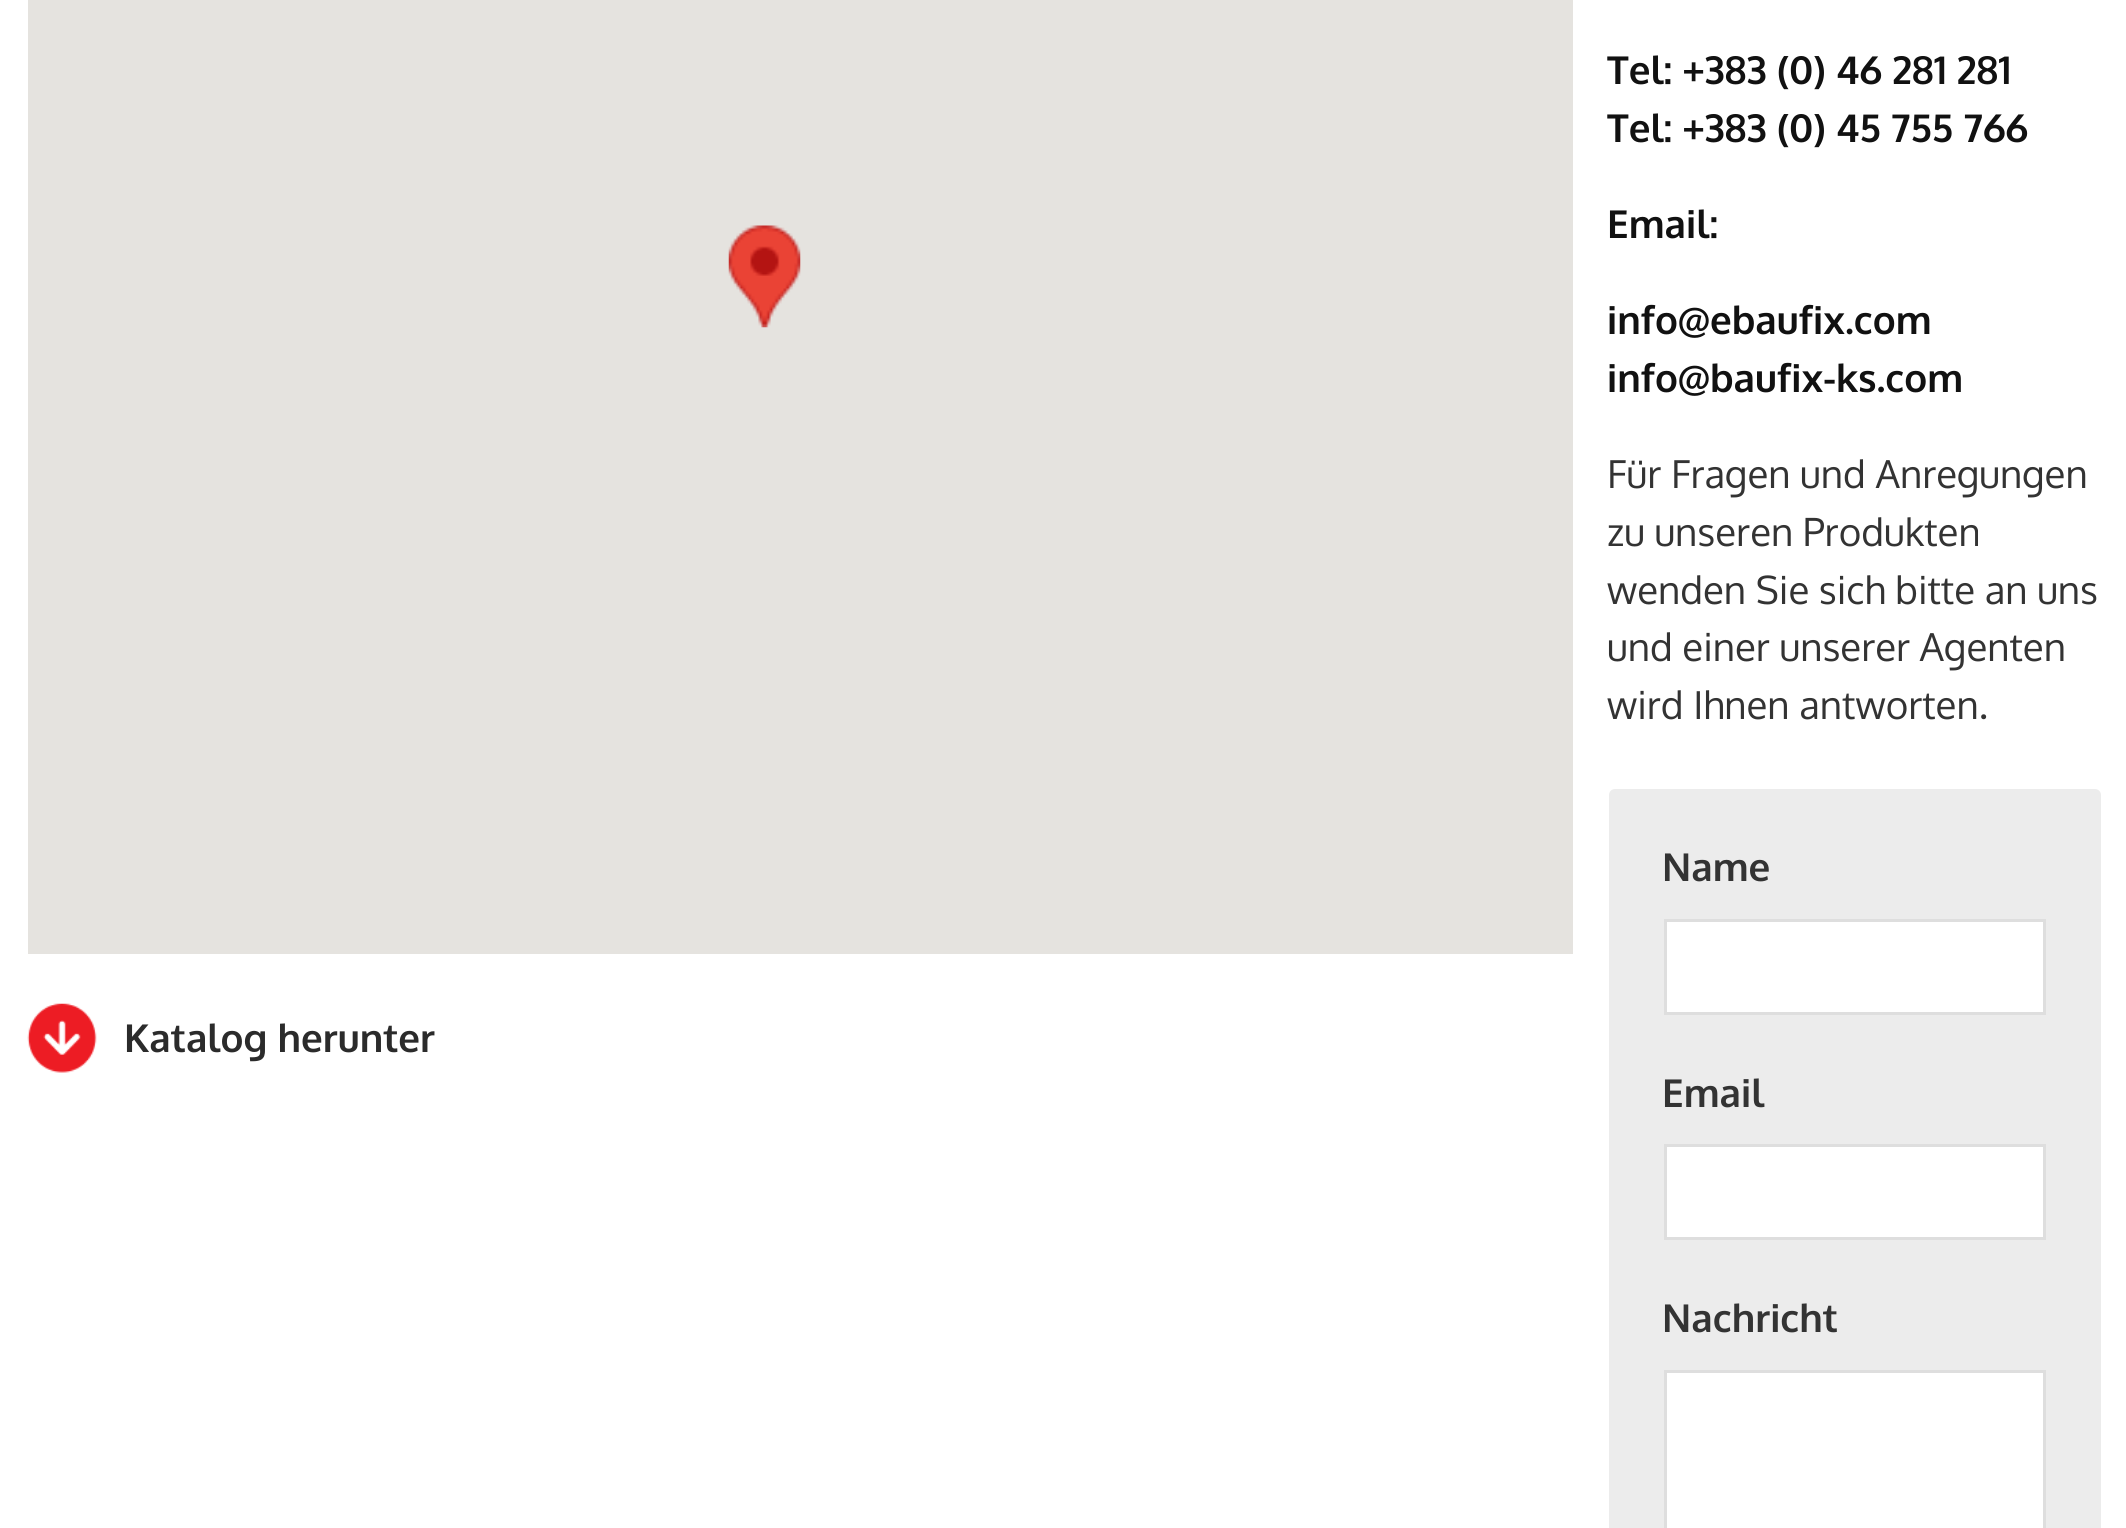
import math
import cairocffi as cairo

surface = cairo.ImageSurface(cairo.FORMAT_RGB24, 2126, 1528)
ctx = cairo.Context(surface)
options = cairo.FontOptions()
options.set_hint_metrics(cairo.HINT_METRICS_OFF)
options.set_hint_style(cairo.HINT_STYLE_NONE)
ctx.set_font_options(options)
ctx.set_miter_limit(4)


def rgb(r, g, b):
    ctx.set_source_rgb(r / 255, g / 255, b / 255)


def face(family, size, italic, bold):
    ctx.select_font_face(family, cairo.FONT_SLANT_ITALIC if italic else cairo.FONT_SLANT_NORMAL, cairo.FONT_WEIGHT_BOLD if bold else cairo.FONT_WEIGHT_NORMAL)
    ctx.set_font_size(size)


def label(x, y, s):
    ctx.move_to(x, y)
    ctx.show_text(s)


def rect(x, y, w, h):
    ctx.rectangle(x, y, w, h)
    ctx.fill()


def rrect(x, y, w, h, r):
    ctx.new_sub_path()
    for i, (u, v) in enumerate([(x + w - r, y + h - r), (x + r, y + h - r), (x + r, y + r), (x + w - r, y + r)]):
        ctx.arc(u, v, r, i * math.pi / 2, (i + 1) * math.pi / 2)
    ctx.close_path()


def image(path, x, y, w, h):
    ctx.save()
    ctx.set_source_surface(cairo.ImageSurface.create_from_png(path), x, y)
    ctx.rectangle(x, y, w, h)
    ctx.fill()
    ctx.restore()


rgb(255, 255, 255)
ctx.paint()
rgb(229, 227, 223)
rect(28, 0, 1545, 954)
image('image0.png', 728, 225, 73, 103)
image('image1.png', 27, 1003, 70, 70)
face('Oxygen', 38.5, 0, 1)
rgb(43, 43, 43)
label(124, 1052, 'Katalog herunter')
rgb(17, 17, 17)
label(1607, 84, 'Tel: +383 (0) 46 281 281')
label(1607, 142, 'Tel: +383 (0) 45 755 766')
label(1607, 238, 'Email:')
label(1607, 334, 'info@ebaufix.com')
label(1607, 392, 'info@baufix-ks.com')
face('Oxygen', 38.5, 0, 0)
rgb(51, 51, 51)
label(1607, 488, 'Für Fragen und Anregungen')
label(1607, 546, 'zu unseren Produkten')
label(1607, 604, 'wenden Sie sich bitte an uns')
label(1607, 661, 'und einer unserer Agenten')
label(1607, 719, 'wird Ihnen antworten.')
rgb(236, 236, 236)
rrect(1609, 789, 492, 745, 6)
ctx.fill()
face('Oxygen', 38.5, 0, 1)
rgb(51, 51, 51)
label(1662, 881, 'Name')
rgb(255, 255, 255)
ctx.rectangle(1665.5, 920.5, 379, 93)
ctx.fill_preserve()
rgb(222, 222, 222)
ctx.set_line_width(3)
ctx.stroke()
rgb(51, 51, 51)
label(1662, 1107, 'Email')
rgb(255, 255, 255)
ctx.rectangle(1665.5, 1145.5, 379, 93)
ctx.fill_preserve()
rgb(222, 222, 222)
ctx.stroke()
rgb(51, 51, 51)
label(1662, 1332, 'Nachricht')
rgb(255, 255, 255)
ctx.rectangle(1665.5, 1371.5, 379, 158)
ctx.fill_preserve()
rgb(222, 222, 222)
ctx.stroke()
surface.write_to_png('render.png')
